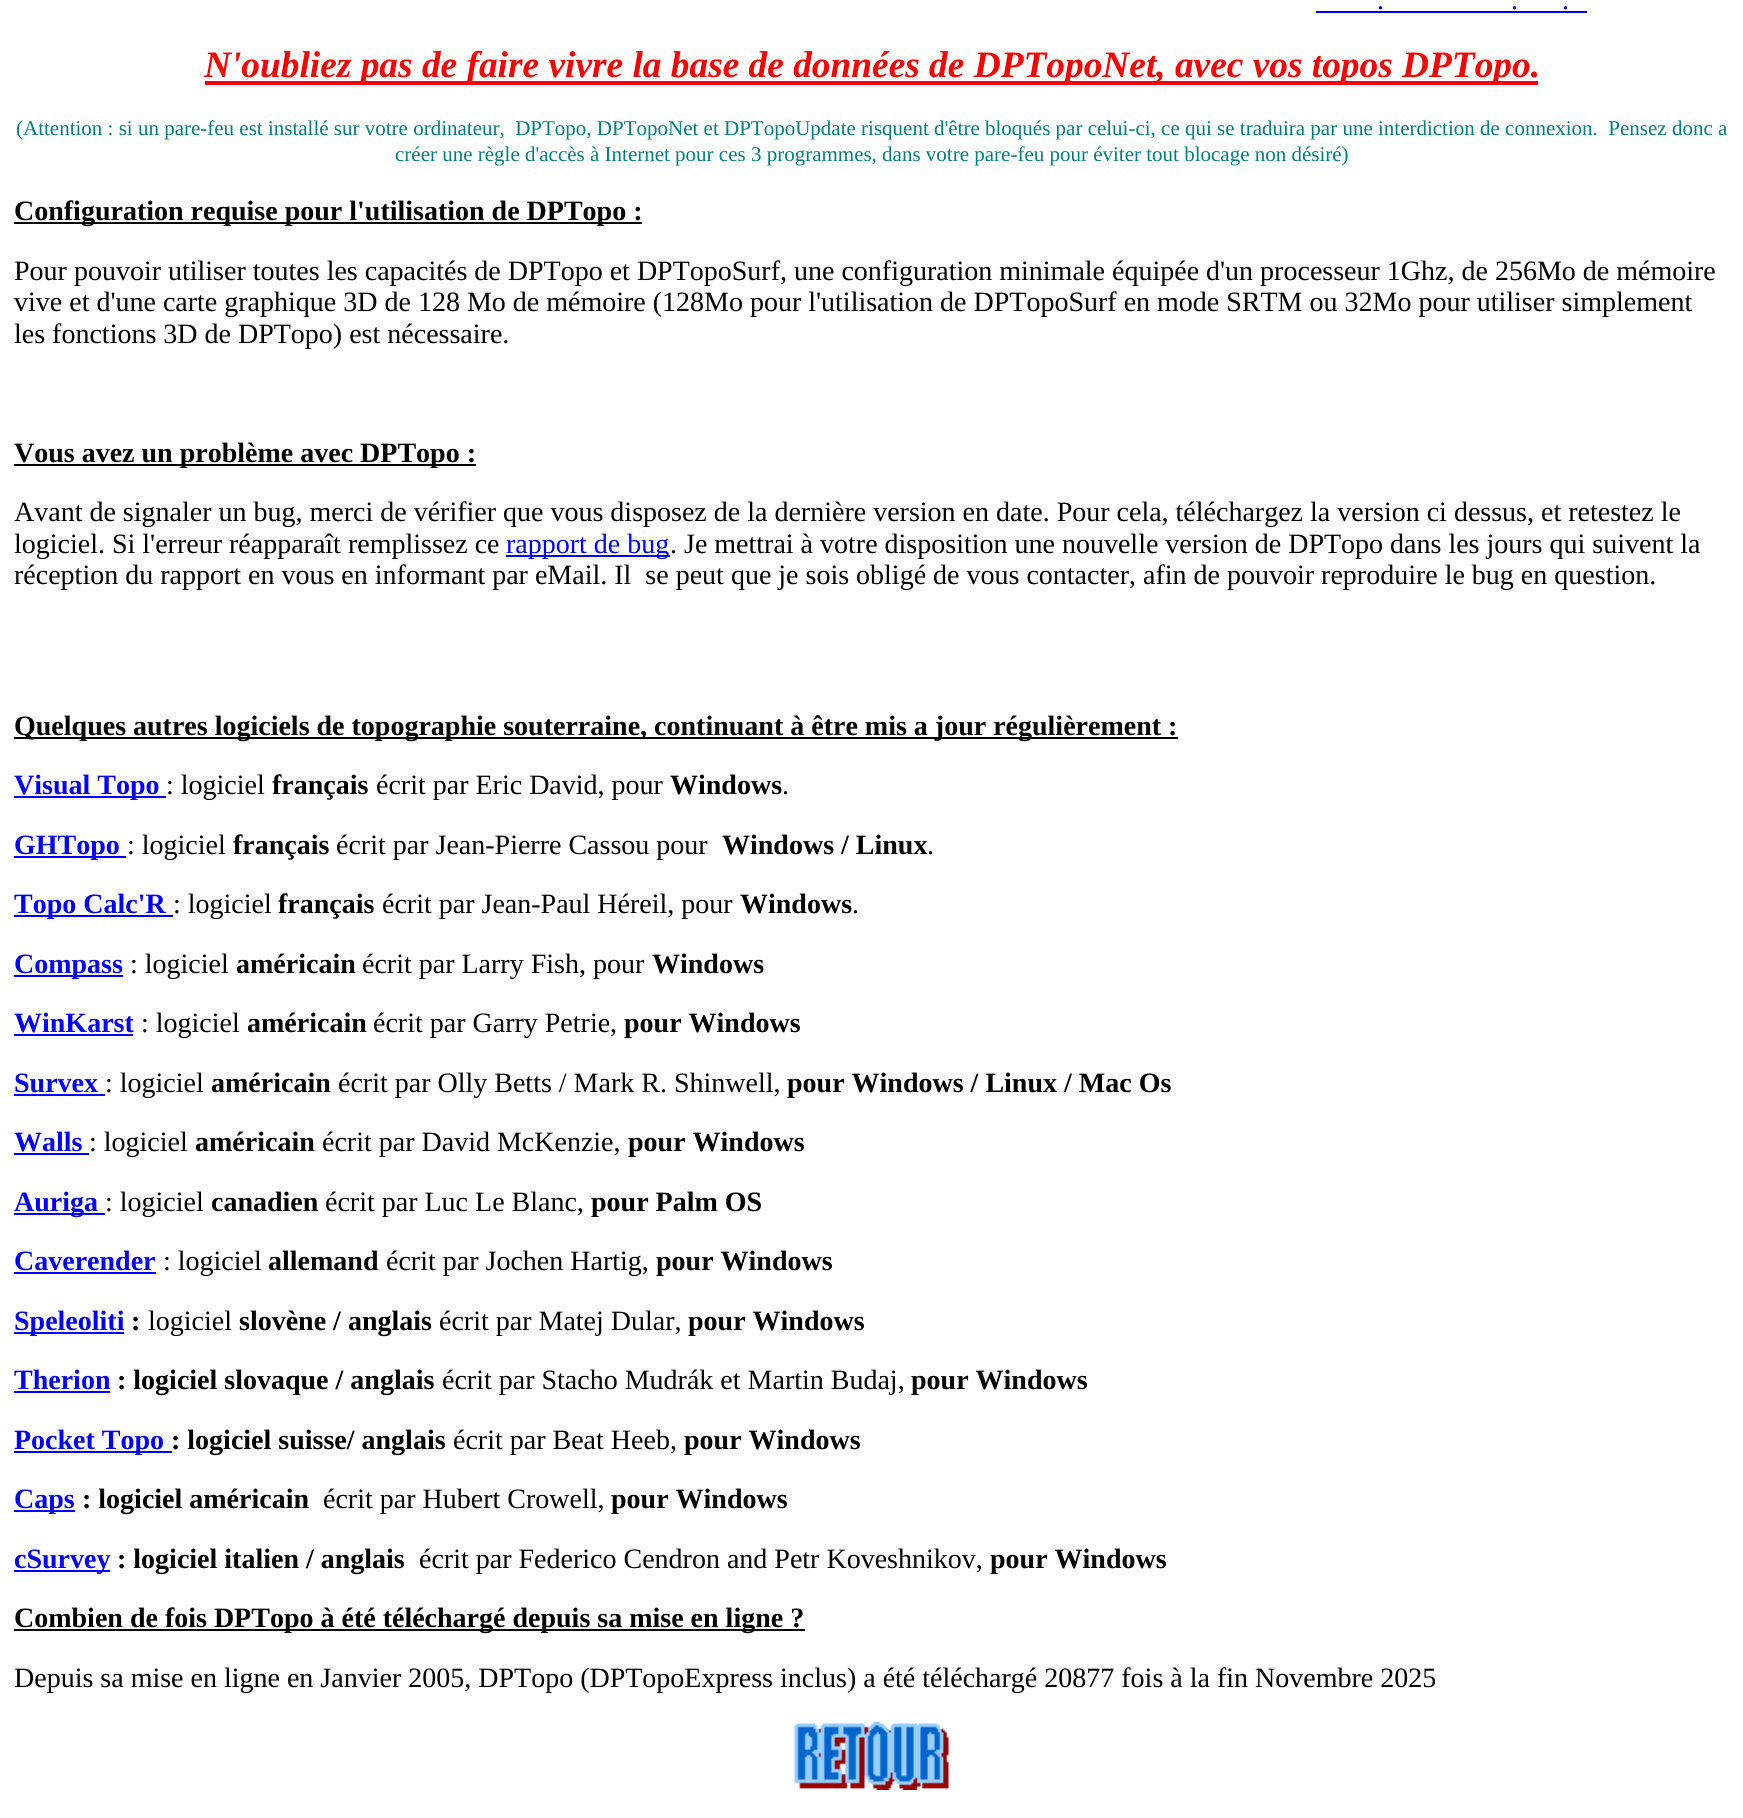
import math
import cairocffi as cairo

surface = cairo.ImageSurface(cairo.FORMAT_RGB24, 1743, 1818)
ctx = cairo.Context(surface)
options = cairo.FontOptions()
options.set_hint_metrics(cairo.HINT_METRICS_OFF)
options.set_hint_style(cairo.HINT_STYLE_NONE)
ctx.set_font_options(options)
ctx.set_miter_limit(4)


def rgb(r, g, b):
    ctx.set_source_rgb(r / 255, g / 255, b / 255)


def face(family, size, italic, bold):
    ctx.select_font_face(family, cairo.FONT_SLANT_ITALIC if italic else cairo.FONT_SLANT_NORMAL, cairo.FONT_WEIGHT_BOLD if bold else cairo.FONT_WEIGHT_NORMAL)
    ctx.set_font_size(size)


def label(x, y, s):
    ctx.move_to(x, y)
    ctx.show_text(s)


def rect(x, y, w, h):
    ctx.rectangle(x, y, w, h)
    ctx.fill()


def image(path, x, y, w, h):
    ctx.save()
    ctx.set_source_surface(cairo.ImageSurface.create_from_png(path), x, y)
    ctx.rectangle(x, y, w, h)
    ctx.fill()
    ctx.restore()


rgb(255, 255, 255)
ctx.paint()
face('Liberation Serif', 28, 0, 0)
rgb(0, 0, 255)
label(1377, 9, '.')
rect(1316, 11, 271, 2)
label(1511, 9, '.')
label(1562, 9, '.')
rgb(255, 0, 0)
rect(205, 81, 1333, 4)
face('Liberation Serif', 37.35, 1, 1)
label(204, 77, 'N\'oubliez pas de faire vivre la base de données de DPTopoNet, avec vos topos DPTopo.')
face('Liberation Serif', 21, 0, 0)
rgb(0, 128, 128)
label(16, 135, '(Attention : si un pare-feu est installé sur votre ordinateur,  DPTopo, DPTopoNet et DPTopoUpdate risquent d\'être bloqués par celui-ci, ce qui se traduira par une interdiction de connexion.  Pensez donc a')
label(395, 161, 'créer une règle d\'accès à Internet pour ces 3 programmes, dans votre pare-feu pour éviter tout blocage non désiré)')
rgb(0, 0, 0)
rect(14, 222, 628, 2)
face('Liberation Serif', 28, 0, 1)
label(14, 220, 'Configuration requise pour l\'utilisation de DPTopo :')
face('Liberation Serif', 28, 0, 0)
label(14, 280, 'Pour pouvoir utiliser toutes les capacités de DPTopo et DPTopoSurf, une configuration minimale équipée d\'un processeur 1Ghz, de 256Mo de mémoire')
label(14, 311, 'vive et d\'une carte graphique 3D de 128 Mo de mémoire (128Mo pour l\'utilisation de DPTopoSurf en mode SRTM ou 32Mo pour utiliser simplement')
label(14, 343, 'les fonctions 3D de DPTopo) est nécessaire.')
rect(14, 464, 462, 2)
face('Liberation Serif', 28, 0, 1)
label(14, 462, 'Vous avez un problème avec DPTopo :')
face('Liberation Serif', 28, 0, 0)
label(14, 521, 'Avant de signaler un bug, merci de vérifier que vous disposez de la dernière version en date. Pour cela, téléchargez la version ci dessus, et retestez le')
label(14, 553, 'logiciel. Si l\'erreur réapparaît remplissez ce')
rgb(0, 0, 255)
rect(506, 555, 164, 2)
label(506, 553, 'rapport de bug')
rgb(0, 0, 0)
label(670, 553, '. Je mettrai à votre disposition une nouvelle version de DPTopo dans les jours qui suivent la')
label(14, 584, 'réception du rapport en vous en informant par eMail. Il  se peut que je sois obligé de vous contacter, afin de pouvoir reproduire le bug en question.')
rect(14, 737, 1164, 2)
face('Liberation Serif', 28, 0, 1)
label(14, 735, 'Quelques autres logiciels de topographie souterraine, continuant à être mis a jour régulièrement :')
rgb(0, 0, 255)
rect(14, 796, 152, 2)
label(14, 794, 'Visual Topo')
face('Liberation Serif', 28, 0, 0)
rgb(0, 0, 0)
label(166, 794, ': logiciel')
face('Liberation Serif', 28, 0, 1)
label(272, 794, 'français')
face('Liberation Serif', 28, 0, 0)
label(376, 794, 'écrit par Eric David, pour')
face('Liberation Serif', 28, 0, 1)
label(670, 794, 'Windows')
face('Liberation Serif', 28, 0, 0)
label(782, 794, '.')
rgb(0, 0, 255)
rect(14, 856, 112, 2)
face('Liberation Serif', 28, 0, 1)
label(14, 854, 'GHTopo')
face('Liberation Serif', 28, 0, 0)
rgb(0, 0, 0)
label(127, 854, ': logiciel')
face('Liberation Serif', 28, 0, 1)
label(233, 854, 'français')
face('Liberation Serif', 28, 0, 0)
label(336, 854, 'écrit par Jean-Pierre Cassou pour')
face('Liberation Serif', 28, 0, 1)
label(722, 854, 'Windows / Linux')
face('Liberation Serif', 28, 0, 0)
label(927, 854, '.')
rgb(0, 0, 255)
rect(14, 915, 159, 2)
face('Liberation Serif', 28, 0, 1)
label(14, 913, 'Topo Calc\'R')
face('Liberation Serif', 28, 0, 0)
rgb(0, 0, 0)
label(173, 913, ': logiciel')
face('Liberation Serif', 28, 0, 1)
label(278, 913, 'français')
face('Liberation Serif', 28, 0, 0)
label(382, 913, 'écrit par Jean-Paul Héreil, pour')
face('Liberation Serif', 28, 0, 1)
label(740, 913, 'Windows')
face('Liberation Serif', 28, 0, 0)
label(852, 913, '.')
rgb(0, 0, 255)
rect(14, 975, 109, 2)
face('Liberation Serif', 28, 0, 1)
label(14, 973, 'Compass')
face('Liberation Serif', 28, 0, 0)
rgb(0, 0, 0)
label(130, 973, ': logiciel')
face('Liberation Serif', 28, 0, 1)
label(236, 973, 'américain')
face('Liberation Serif', 28, 0, 0)
label(362, 973, 'écrit par Larry Fish, pour')
face('Liberation Serif', 28, 0, 1)
label(652, 973, 'Windows')
rgb(0, 0, 255)
label(14, 1032, 'WinKarst')
rect(14, 1034, 119, 2)
face('Liberation Serif', 28, 0, 0)
rgb(0, 0, 0)
label(141, 1032, ': logiciel')
face('Liberation Serif', 28, 0, 1)
label(247, 1032, 'américain')
face('Liberation Serif', 28, 0, 0)
label(373, 1032, 'écrit par Garry Petrie,')
face('Liberation Serif', 28, 0, 1)
label(624, 1032, 'pour Windows')
rgb(0, 0, 255)
label(14, 1092, 'Survex')
rect(14, 1094, 91, 2)
face('Liberation Serif', 28, 0, 0)
rgb(0, 0, 0)
label(105, 1092, ': logiciel')
face('Liberation Serif', 28, 0, 1)
label(211, 1092, 'américain')
face('Liberation Serif', 28, 0, 0)
label(338, 1092, 'écrit par Olly Betts / Mark R. Shinwell,')
face('Liberation Serif', 28, 0, 1)
label(787, 1092, 'pour Windows / Linux / Mac Os')
rgb(0, 0, 255)
label(14, 1151, 'Walls')
rect(14, 1153, 75, 2)
face('Liberation Serif', 28, 0, 0)
rgb(0, 0, 0)
label(89, 1151, ': logiciel')
face('Liberation Serif', 28, 0, 1)
label(195, 1151, 'américain')
face('Liberation Serif', 28, 0, 0)
label(322, 1151, 'écrit par David McKenzie,')
face('Liberation Serif', 28, 0, 1)
label(628, 1151, 'pour Windows')
rgb(0, 0, 255)
rect(14, 1213, 91, 2)
label(14, 1211, 'Auriga')
face('Liberation Serif', 28, 0, 0)
rgb(0, 0, 0)
label(105, 1211, ': logiciel')
face('Liberation Serif', 28, 0, 1)
label(211, 1211, 'canadien')
face('Liberation Serif', 28, 0, 0)
label(325, 1211, 'écrit par Luc Le Blanc,')
face('Liberation Serif', 28, 0, 1)
label(591, 1211, 'pour Palm OS')
rgb(0, 0, 255)
label(14, 1270, 'Caverender')
rect(14, 1272, 142, 2)
face('Liberation Serif', 28, 0, 0)
rgb(0, 0, 0)
label(163, 1270, ': logiciel')
face('Liberation Serif', 28, 0, 1)
label(268, 1270, 'allemand')
face('Liberation Serif', 28, 0, 0)
label(386, 1270, 'écrit par Jochen Hartig,')
face('Liberation Serif', 28, 0, 1)
label(656, 1270, 'pour Windows')
rgb(0, 0, 255)
rect(14, 1332, 110, 2)
label(14, 1330, 'Speleoliti')
rgb(0, 0, 0)
label(131, 1330, ':')
face('Liberation Serif', 28, 0, 0)
label(148, 1330, 'logiciel')
face('Liberation Serif', 28, 0, 1)
label(239, 1330, 'slovène / anglais')
face('Liberation Serif', 28, 0, 0)
label(439, 1330, 'écrit par Matej Dular,')
face('Liberation Serif', 28, 0, 1)
label(688, 1330, 'pour Windows')
rgb(0, 0, 255)
label(14, 1389, 'Therion')
rect(14, 1391, 96, 2)
rgb(0, 0, 0)
label(117, 1389, ': logiciel slovaque / anglais')
face('Liberation Serif', 28, 0, 0)
label(442, 1389, 'écrit par Stacho Mudrák et Martin Budaj,')
face('Liberation Serif', 28, 0, 1)
label(911, 1389, 'pour Windows')
rgb(0, 0, 255)
rect(14, 1451, 158, 2)
label(14, 1449, 'Pocket Topo')
rgb(0, 0, 0)
label(171, 1449, ': logiciel suisse/ anglais')
face('Liberation Serif', 28, 0, 0)
label(453, 1449, 'écrit par Beat Heeb,')
face('Liberation Serif', 28, 0, 1)
label(684, 1449, 'pour Windows')
rgb(0, 0, 255)
rect(14, 1510, 61, 2)
label(14, 1508, 'Caps')
rgb(0, 0, 0)
label(82, 1508, ': logiciel américain')
face('Liberation Serif', 28, 0, 0)
label(323, 1508, 'écrit par Hubert Crowell,')
face('Liberation Serif', 28, 0, 1)
label(611, 1508, 'pour Windows')
rgb(0, 0, 255)
rect(14, 1570, 96, 2)
label(14, 1568, 'cSurvey')
rgb(0, 0, 0)
label(117, 1568, ': logiciel italien / anglais')
face('Liberation Serif', 28, 0, 0)
label(419, 1568, 'écrit par Federico Cendron and Petr Koveshnikov,')
face('Liberation Serif', 28, 0, 1)
label(990, 1568, 'pour Windows')
rect(14, 1629, 791, 2)
label(14, 1627, 'Combien de fois DPTopo à été téléchargé depuis sa mise en ligne ?')
face('Liberation Serif', 28, 0, 0)
label(14, 1687, 'Depuis sa mise en ligne en Janvier 2005, DPTopo (DPTopoExpress inclus) a été téléchargé 20877 fois à la fin Novembre 2025')
image('image0.png', 794, 1721, 155, 69)
surface.write_to_png('render.png')
